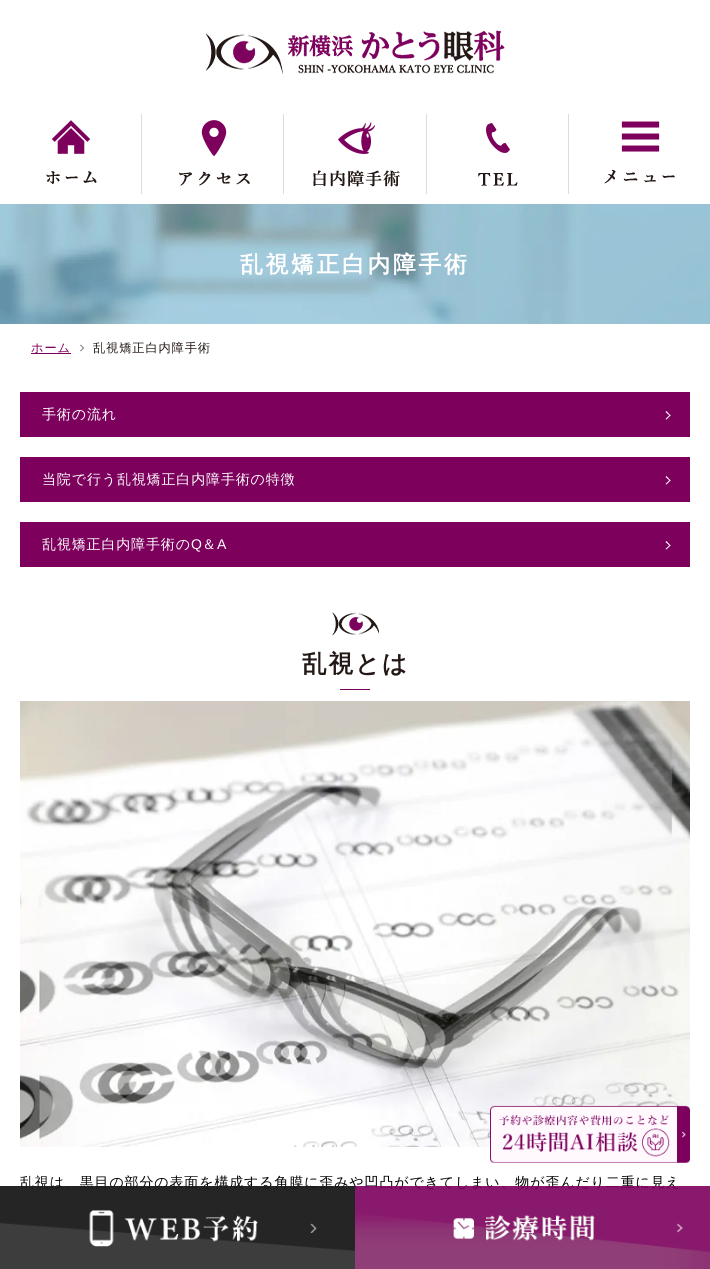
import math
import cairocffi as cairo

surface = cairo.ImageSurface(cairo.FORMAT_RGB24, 710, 1269)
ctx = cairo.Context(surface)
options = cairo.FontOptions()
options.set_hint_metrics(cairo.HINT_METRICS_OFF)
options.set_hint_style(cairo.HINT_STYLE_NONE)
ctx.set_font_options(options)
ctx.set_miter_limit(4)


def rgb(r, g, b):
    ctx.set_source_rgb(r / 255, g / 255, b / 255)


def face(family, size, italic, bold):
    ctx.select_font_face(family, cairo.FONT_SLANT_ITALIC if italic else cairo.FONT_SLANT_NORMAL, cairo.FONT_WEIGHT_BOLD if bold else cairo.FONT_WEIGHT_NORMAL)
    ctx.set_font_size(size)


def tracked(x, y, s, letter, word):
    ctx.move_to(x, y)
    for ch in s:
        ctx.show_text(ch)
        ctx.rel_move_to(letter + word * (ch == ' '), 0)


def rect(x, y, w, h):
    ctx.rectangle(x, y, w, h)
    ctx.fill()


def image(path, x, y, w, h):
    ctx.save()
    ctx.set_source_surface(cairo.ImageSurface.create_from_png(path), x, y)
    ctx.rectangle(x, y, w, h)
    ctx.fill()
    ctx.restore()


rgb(255, 255, 255)
ctx.paint()
image('image0.png', 205, 30, 300, 44)
image('image1.png', 46, 120, 51, 64)
rgb(220, 220, 220)
rect(141, 114, 1, 80)
image('image2.png', 179, 120, 71, 66)
rect(283, 114, 1, 80)
image('image3.png', 313, 122, 87, 65)
rect(426, 114, 1, 80)
image('image4.png', 478, 123, 40, 63)
rect(568, 114, 1, 80)
image('image5.png', 604, 121, 71, 63)
image('image6.png', 0, 204, 710, 120)
face('WenQuanYi Zen Hei', 22.75, 0, 1)
rgb(255, 255, 255)
tracked(240, 272, '乱視矯正白内障手術', 2.75, 0)
rgb(125, 0, 93)
rect(31, 353, 40, 1)
face('WenQuanYi Zen Hei Medium', 12.25, 0, 0)
tracked(31, 352, 'ホーム', 0.85, 0)
image('image7.png', 80, 344, 5, 8)
rgb(35, 24, 21)
tracked(93, 352, '乱視矯正白内障手術', 0.85, 0)
rgb(125, 0, 93)
rect(20, 392, 670, 45)
face('WenQuanYi Zen Hei Medium', 14, 0, 0)
rgb(255, 255, 255)
tracked(42, 419, '手術の流れ', 0.85, 0)
ctx.new_path()
ctx.move_to(666.5, 411)
ctx.line_to(670.5, 415.5)
ctx.line_to(670, 416)
ctx.line_to(665.5, 412)
ctx.close_path()
ctx.fill()
ctx.new_path()
ctx.move_to(670, 414.5)
ctx.line_to(670.5, 415.5)
ctx.line_to(666.5, 419.5)
ctx.line_to(665.5, 419)
ctx.close_path()
ctx.fill()
rgb(125, 0, 93)
rect(20, 457, 670, 45)
rgb(255, 255, 255)
tracked(42, 484, '当院で行う乱視矯正白内障手術の特徴', 0.85, 0)
ctx.new_path()
ctx.move_to(666.5, 476)
ctx.line_to(670.5, 480.5)
ctx.line_to(670, 481)
ctx.line_to(665.5, 477)
ctx.close_path()
ctx.fill()
ctx.new_path()
ctx.move_to(670, 479.5)
ctx.line_to(670.5, 480.5)
ctx.line_to(666.5, 484.5)
ctx.line_to(665.5, 484)
ctx.close_path()
ctx.fill()
rgb(125, 0, 93)
rect(20, 522, 670, 45)
rgb(255, 255, 255)
tracked(42, 549, '乱視矯正白内障手術の', 0.85, 0)
face('Liberation Sans', 14, 0, 0)
tracked(191, 549, 'Q', 0.85, 0)
face('WenQuanYi Zen Hei Medium', 14, 0, 0)
tracked(202, 549, '＆', 0.85, 0)
face('Liberation Sans', 14, 0, 0)
tracked(217, 549, 'A', 0.85, 0)
ctx.new_path()
ctx.move_to(666.5, 541)
ctx.line_to(670.5, 545.5)
ctx.line_to(670, 546)
ctx.line_to(665.5, 542)
ctx.close_path()
ctx.fill()
ctx.new_path()
ctx.move_to(670, 544.5)
ctx.line_to(670.5, 545.5)
ctx.line_to(666.5, 549.5)
ctx.line_to(665.5, 549)
ctx.close_path()
ctx.fill()
image('image8.png', 332, 612, 47, 24)
face('WenQuanYi Zen Hei', 24.5, 0, 1)
rgb(35, 24, 21)
tracked(302, 672, '乱視とは', 2, 0)
rgb(125, 0, 93)
rect(340, 689, 30, 1)
image('image9.png', 20, 701, 670, 446)
face('WenQuanYi Zen Hei Medium', 14, 0, 0)
rgb(0, 0, 0)
tracked(20, 1187, '乱視は、黒目の部分の表面を構成する角膜に歪みや凹凸ができてしまい、物が歪んだり二重に見え', 0.85, 0)
image('image10.png', 490, 1105, 200, 58)
image('image11.png', 0, 1186, 355, 83)
image('image12.png', 355, 1186, 355, 83)
surface.write_to_png('render.png')
